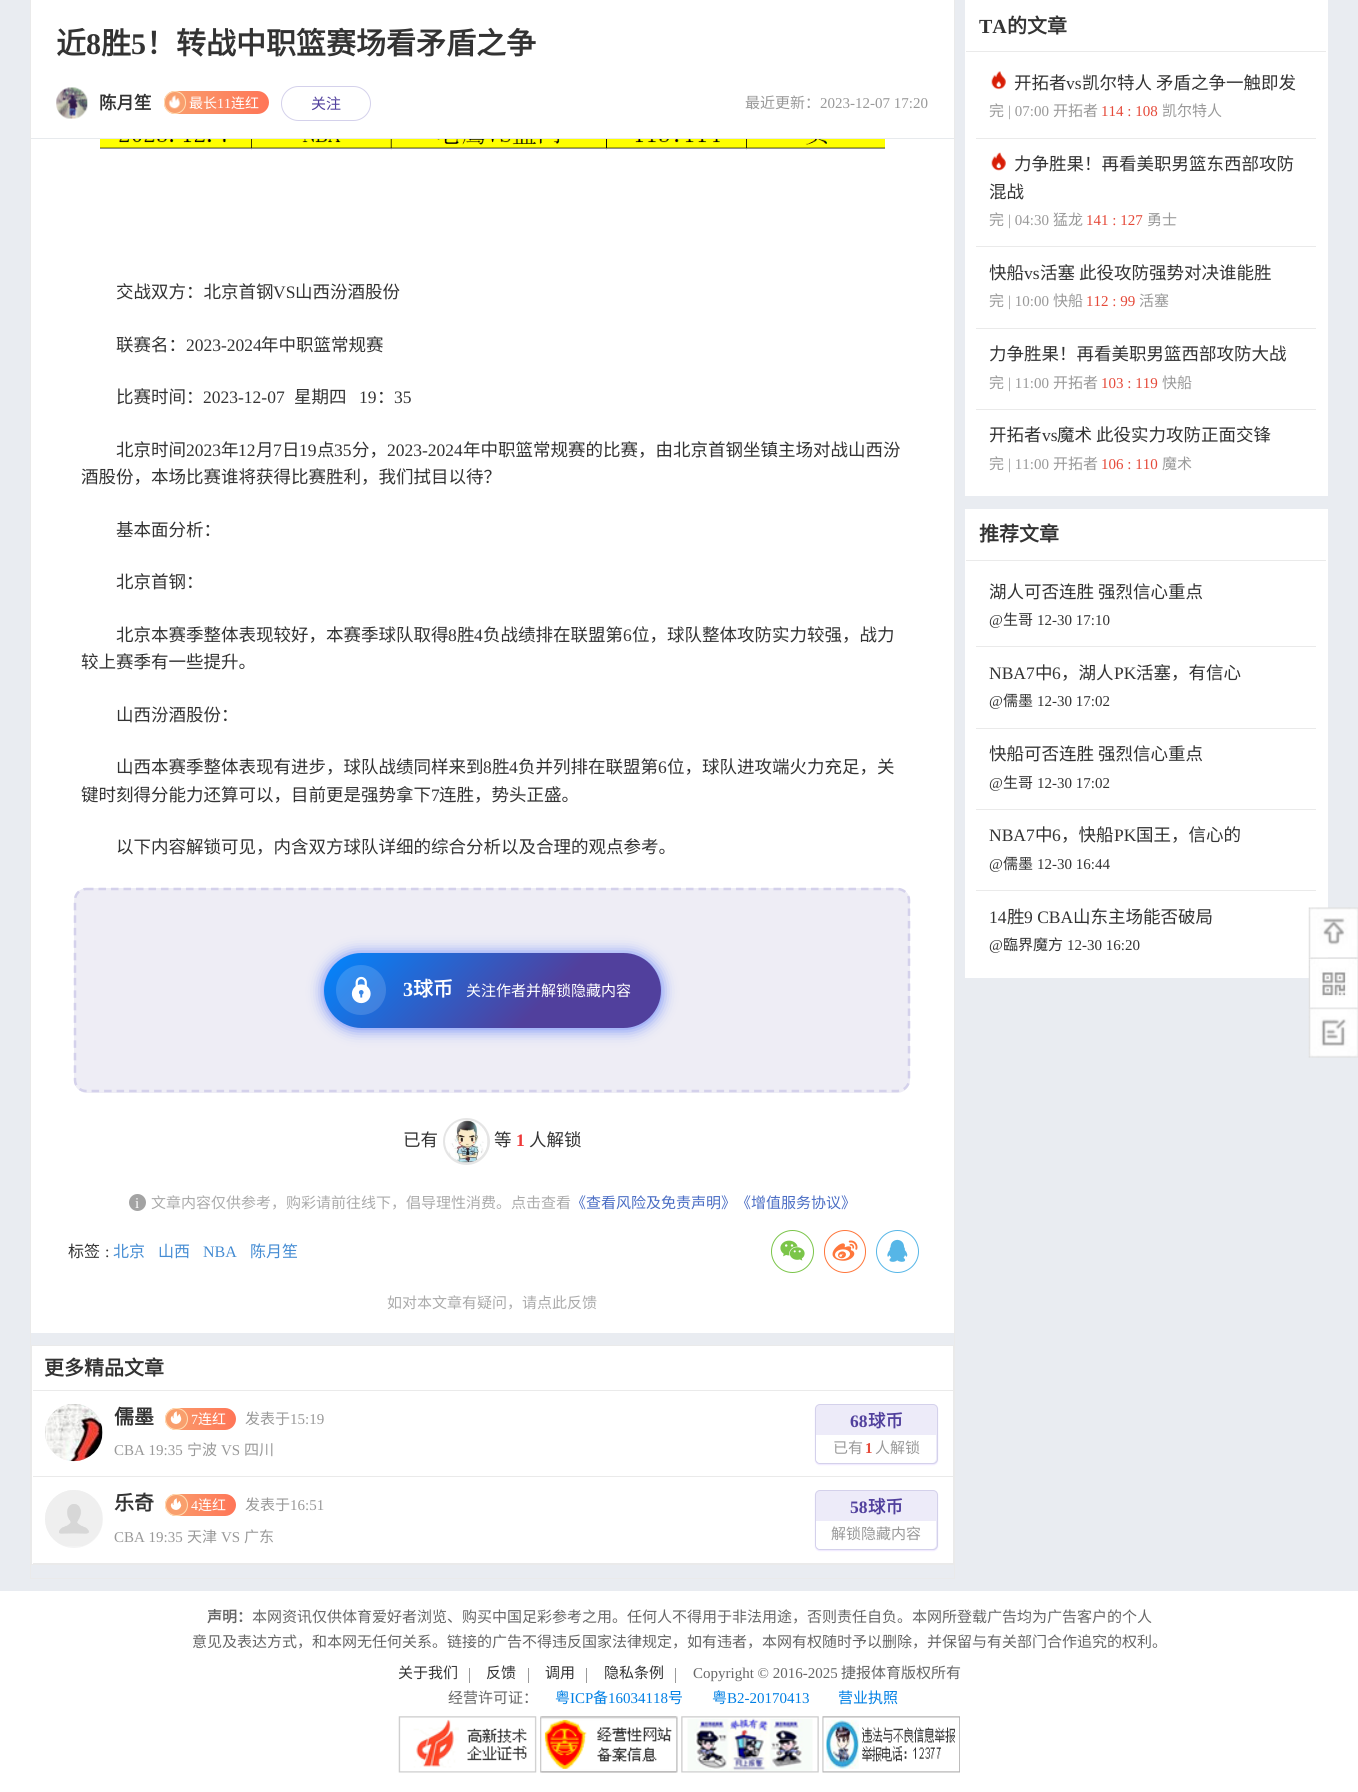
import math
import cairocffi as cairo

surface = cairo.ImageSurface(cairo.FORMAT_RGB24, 1358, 1792)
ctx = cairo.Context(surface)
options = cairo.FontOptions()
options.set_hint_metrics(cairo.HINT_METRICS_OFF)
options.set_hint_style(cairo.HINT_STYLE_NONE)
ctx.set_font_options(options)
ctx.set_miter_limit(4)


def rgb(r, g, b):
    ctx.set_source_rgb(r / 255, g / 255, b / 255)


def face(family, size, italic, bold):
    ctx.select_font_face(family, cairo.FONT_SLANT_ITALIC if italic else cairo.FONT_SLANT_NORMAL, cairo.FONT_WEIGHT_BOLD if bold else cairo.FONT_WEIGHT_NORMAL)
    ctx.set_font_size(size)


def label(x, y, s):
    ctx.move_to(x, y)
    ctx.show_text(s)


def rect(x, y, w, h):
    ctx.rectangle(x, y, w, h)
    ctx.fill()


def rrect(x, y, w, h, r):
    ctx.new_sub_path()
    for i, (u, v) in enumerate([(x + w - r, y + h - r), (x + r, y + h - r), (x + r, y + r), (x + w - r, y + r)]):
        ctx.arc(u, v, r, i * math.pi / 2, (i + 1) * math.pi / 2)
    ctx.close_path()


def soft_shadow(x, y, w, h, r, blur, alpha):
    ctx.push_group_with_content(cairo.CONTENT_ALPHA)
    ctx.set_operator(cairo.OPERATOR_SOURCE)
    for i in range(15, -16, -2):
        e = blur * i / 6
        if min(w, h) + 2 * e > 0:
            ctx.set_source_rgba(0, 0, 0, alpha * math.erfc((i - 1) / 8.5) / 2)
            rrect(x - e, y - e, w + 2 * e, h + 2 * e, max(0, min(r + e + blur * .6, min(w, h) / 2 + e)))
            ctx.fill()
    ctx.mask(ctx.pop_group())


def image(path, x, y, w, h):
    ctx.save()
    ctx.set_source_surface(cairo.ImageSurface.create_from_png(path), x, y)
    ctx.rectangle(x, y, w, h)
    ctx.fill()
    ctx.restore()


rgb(233, 236, 241)
ctx.paint()
ctx.rectangle(30.5, -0.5, 924, 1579)
rgb(234, 234, 234)
ctx.set_line_width(1)
ctx.stroke()
rgb(255, 255, 255)
rect(31, 139, 923, 1194)
rect(31, 0, 923, 138)
face('Noto Sans CJK SC', 30, 0, 1)
rgb(51, 51, 51)
label(56, 54, '近')
face('Liberation Serif', 30, 0, 1)
label(86, 54, '8')
face('Noto Sans CJK SC', 30, 0, 1)
label(101, 54, '胜')
face('Liberation Serif', 30, 0, 1)
label(131, 54, '5')
face('Noto Sans CJK SC', 30, 0, 1)
label(146, 54, '！转战中职篮赛场看矛盾之争')
rgb(231, 234, 237)
rect(31, 138, 923, 1)
image('image0.png', 56, 87, 32, 32)
face('Noto Sans CJK SC', 17.5, 0, 1)
rgb(51, 51, 51)
label(99, 109, '陈月笙')
gradient = cairo.LinearGradient(165, 103, 269, 103)
gradient.add_color_stop_rgba(0, 0.976, 0.624, 0.427, 1)
gradient.add_color_stop_rgba(1, 1, 0.459, 0.341, 1)
ctx.set_source(gradient)
rrect(165, 91, 104, 23, 11.5)
ctx.fill()
rgb(249, 159, 109)
rrect(164, 91, 22, 23, 11)
ctx.fill()
image('image1.png', 168, 95, 13, 14)
rrect(164.5, 91.5, 21, 22, 10.5)
rgb(255, 221, 180)
ctx.stroke()
face('Noto Sans CJK SC', 14, 0, 0)
rgb(255, 255, 255)
label(189, 108, '最长')
face('Liberation Serif', 14, 0, 0)
label(217, 108, '11')
face('Noto Sans CJK SC', 14, 0, 0)
label(231, 108, '连红')
rrect(281.5, 86.5, 89, 34, 17)
rgb(212, 209, 235)
ctx.stroke()
face('Noto Sans CJK SC', 15, 0, 0)
rgb(81, 64, 157)
label(311, 109, '关注')
rgb(153, 153, 153)
label(745, 108, '最近更新：')
face('Liberation Serif', 15, 0, 0)
label(820, 108, '2023-12-07 17:20')
image('image2.png', 100, 139, 785, 11)
face('Noto Sans CJK SC', 17.5, 0, 0)
rgb(51, 51, 51)
label(116, 298, '交战双方：北京首钢')
face('Liberation Serif', 17.5, 0, 0)
label(273, 298, 'VS')
face('Noto Sans CJK SC', 17.5, 0, 0)
label(295, 298, '山西汾酒股份')
label(116, 351, '联赛名：')
face('Liberation Serif', 17.5, 0, 0)
label(186, 351, '2023-2024')
face('Noto Sans CJK SC', 17.5, 0, 0)
label(261, 351, '年中职篮常规赛')
label(116, 403, '比赛时间：')
face('Liberation Serif', 17.5, 0, 0)
label(203, 403, '2023-12-07')
face('Noto Sans CJK SC', 17.5, 0, 0)
label(294, 403, '星期四')
face('Liberation Serif', 17.5, 0, 0)
label(359, 403, '19')
face('Noto Sans CJK SC', 17.5, 0, 0)
label(377, 403, '：')
face('Liberation Serif', 17.5, 0, 0)
label(394, 403, '35')
face('Noto Sans CJK SC', 17.5, 0, 0)
label(116, 456, '北京时间')
face('Liberation Serif', 17.5, 0, 0)
label(186, 456, '2023')
face('Noto Sans CJK SC', 17.5, 0, 0)
label(221, 456, '年')
face('Liberation Serif', 17.5, 0, 0)
label(238, 456, '12')
face('Noto Sans CJK SC', 17.5, 0, 0)
label(256, 456, '月')
face('Liberation Serif', 17.5, 0, 0)
label(273, 456, '7')
face('Noto Sans CJK SC', 17.5, 0, 0)
label(282, 456, '日')
face('Liberation Serif', 17.5, 0, 0)
label(299, 456, '19')
face('Noto Sans CJK SC', 17.5, 0, 0)
label(317, 456, '点')
face('Liberation Serif', 17.5, 0, 0)
label(334, 456, '35')
face('Noto Sans CJK SC', 17.5, 0, 0)
label(352, 456, '分，')
face('Liberation Serif', 17.5, 0, 0)
label(387, 456, '2023-2024')
face('Noto Sans CJK SC', 17.5, 0, 0)
label(463, 456, '年中职篮常规赛的比赛，由北京首钢坐镇主场对战山西汾')
label(81, 483, '酒股份，本场比赛谁将获得比赛胜利，我们拭目以待？')
label(116, 536, '基本面分析：')
label(116, 588, '北京首钢：')
label(116, 641, '北京本赛季整体表现较好，本赛季球队取得')
face('Liberation Serif', 17.5, 0, 0)
label(448, 641, '8')
face('Noto Sans CJK SC', 17.5, 0, 0)
label(457, 641, '胜')
face('Liberation Serif', 17.5, 0, 0)
label(474, 641, '4')
face('Noto Sans CJK SC', 17.5, 0, 0)
label(483, 641, '负战绩排在联盟第')
face('Liberation Serif', 17.5, 0, 0)
label(623, 641, '6')
face('Noto Sans CJK SC', 17.5, 0, 0)
label(632, 641, '位，球队整体攻防实力较强，战力')
label(81, 668, '较上赛季有一些提升。')
label(116, 721, '山西汾酒股份：')
label(116, 773, '山西本赛季整体表现有进步，球队战绩同样来到')
face('Liberation Serif', 17.5, 0, 0)
label(483, 773, '8')
face('Noto Sans CJK SC', 17.5, 0, 0)
label(492, 773, '胜')
face('Liberation Serif', 17.5, 0, 0)
label(509, 773, '4')
face('Noto Sans CJK SC', 17.5, 0, 0)
label(518, 773, '负并列排在联盟第')
face('Liberation Serif', 17.5, 0, 0)
label(658, 773, '6')
face('Noto Sans CJK SC', 17.5, 0, 0)
label(667, 773, '位，球队进攻端火力充足，关')
label(81, 801, '键时刻得分能力还算可以，目前更是强势拿下')
face('Liberation Serif', 17.5, 0, 0)
label(431, 801, '7')
face('Noto Sans CJK SC', 17.5, 0, 0)
label(439, 801, '连胜，势头正盛。')
label(116, 853, '以下内容解锁可见，内含双方球队详细的综合分析以及合理的观点参考。')
rgb(238, 237, 245)
rrect(74, 888, 836, 205, 13)
ctx.fill()
ctx.new_path()
ctx.move_to(86, 889)
ctx.line_to(897.5, 889)
ctx.curve_to(903.5, 889, 909, 894, 909, 900)
ctx.line_to(909, 1080)
ctx.curve_to(909, 1086, 903.5, 1091, 897.5, 1091)
ctx.line_to(86, 1091)
ctx.curve_to(80, 1091, 75, 1086, 75, 1080)
ctx.line_to(75, 900)
ctx.curve_to(75, 894, 80, 889, 86, 889)
ctx.close_path()
rgb(212, 209, 235)
ctx.set_line_width(2.5)
ctx.set_dash([7.5, 5])
ctx.stroke()
rgb(0, 55, 255)
soft_shadow(324, 954, 337, 75, 37.5, 7.5, 0.6)
gradient = cairo.LinearGradient(389, 887, 596, 1093)
gradient.add_color_stop_rgba(0, 0, 0.529, 1, 1)
gradient.add_color_stop_rgba(0.65, 0.318, 0.251, 0.616, 1)
ctx.set_source(gradient)
rrect(324, 953, 337, 75, 37.5)
ctx.fill()
ctx.set_source_rgba(1, 1, 1, 0.15)
ctx.arc(361, 990, 25, 0, 2 * math.pi)
ctx.fill()
image('image3.png', 351, 976, 20, 28)
face('Liberation Serif', 20, 0, 1)
rgb(255, 255, 255)
label(403, 996, '3')
face('Noto Sans CJK SC', 20, 0, 1)
label(413, 996, '球币')
face('Noto Sans CJK SC', 15, 0, 0)
label(466, 996, '关注作者并解锁隐藏内容')
face('Noto Sans CJK SC', 17.5, 0, 0)
rgb(51, 51, 51)
label(403, 1146, '已有')
ctx.new_path()
ctx.arc(466.5, 1141.5, 22, 0, 2 * math.pi)
rgb(229, 229, 229)
ctx.set_line_width(3)
ctx.set_dash([])
ctx.stroke()
image('image4.png', 445, 1120, 43, 43)
rgb(51, 51, 51)
label(494, 1146, '等')
face('Liberation Serif', 17.5, 0, 1)
rgb(238, 57, 57)
label(516, 1146, '1')
face('Noto Sans CJK SC', 17.5, 0, 0)
rgb(51, 51, 51)
label(529, 1146, '人解锁')
rgb(163, 163, 163)
ctx.new_path()
ctx.arc(137.5, 1202.5, 8.5, 0, 2 * math.pi)
ctx.fill()
face('Liberation Serif', 15, 0, 0)
rgb(255, 255, 255)
label(135, 1208, 'i')
face('Noto Sans CJK SC', 15, 0, 0)
rgb(171, 171, 171)
label(151, 1208, '文章内容仅供参考，购彩请前往线下，倡导理性消费。点击查看')
rgb(74, 109, 196)
label(571, 1208, '《查看风险及免责声明》《增值服务协议》')
face('Noto Sans CJK SC', 16, 0, 0)
rgb(51, 51, 51)
label(68, 1257, '标签')
face('Liberation Serif', 16, 0, 0)
label(105, 1257, ':')
face('Noto Sans CJK SC', 16, 0, 0)
rgb(69, 140, 211)
label(113, 1257, '北京')
label(158, 1257, '山西')
face('Liberation Serif', 16, 0, 0)
label(203, 1257, 'NBA')
face('Noto Sans CJK SC', 16, 0, 0)
label(250, 1257, '陈月笙')
ctx.new_path()
ctx.arc(792.5, 1251.5, 21, 0, 2 * math.pi)
rgb(123, 197, 73)
ctx.set_line_width(1)
ctx.stroke()
image('image5.png', 780, 1240, 25, 21)
rrect(824.5, 1230.5, 41, 42, 20.5)
rgb(255, 118, 59)
ctx.stroke()
image('image6.png', 832, 1240, 26, 21)
ctx.arc(897.5, 1251.5, 21, 0, 2 * math.pi)
rgb(86, 182, 231)
ctx.stroke()
image('image7.png', 887, 1239, 21, 23)
face('Noto Sans CJK SC', 15, 0, 0)
rgb(171, 171, 171)
label(387, 1308, '如对本文章有疑问，请点此反馈')
rgb(255, 255, 255)
ctx.rectangle(31.5, 1345.5, 922, 219)
ctx.fill_preserve()
rgb(234, 234, 234)
ctx.stroke()
rect(33, 1390, 920, 1)
face('Noto Sans CJK SC', 20, 0, 1)
rgb(51, 51, 51)
label(44, 1375, '更多精品文章')
rgb(234, 234, 234)
rect(33, 1476, 920, 1)
rgb(243, 243, 243)
rrect(45, 1404, 58, 57, 28.5)
ctx.fill()
image('image8.png', 45, 1404, 58, 58)
rgb(51, 51, 51)
label(114, 1424, '儒墨')
gradient = cairo.LinearGradient(166, 1419, 236, 1419)
gradient.add_color_stop_rgba(0, 0.976, 0.624, 0.427, 1)
gradient.add_color_stop_rgba(1, 1, 0.459, 0.341, 1)
ctx.set_source(gradient)
rrect(166, 1408, 70, 22, 11)
ctx.fill()
rgb(249, 159, 109)
rrect(165, 1408, 23, 22, 11)
ctx.fill()
image('image9.png', 170, 1411, 12, 13)
rrect(165.5, 1408.5, 22, 21, 10.5)
rgb(255, 221, 180)
ctx.stroke()
face('Liberation Serif', 14, 0, 0)
rgb(255, 255, 255)
label(191, 1424, '7')
face('Noto Sans CJK SC', 14, 0, 0)
label(198, 1424, '连红')
face('Noto Sans CJK SC', 15, 0, 0)
rgb(153, 153, 153)
label(245, 1424, '发表于')
face('Liberation Serif', 15, 0, 0)
label(290, 1424, '15:19')
label(114, 1455, 'CBA 19:35')
face('Noto Sans CJK SC', 15, 0, 0)
label(187, 1455, '宁波')
face('Liberation Serif', 15, 0, 0)
label(221, 1455, 'VS')
face('Noto Sans CJK SC', 15, 0, 0)
label(244, 1455, '四川')
rgb(90, 22, 255)
soft_shadow(815, 1405, 123, 60, 5, 0.5, 0.1)
rgb(237, 235, 249)
rrect(815.5, 1404.5, 122, 59, 4.5)
ctx.fill_preserve()
rgb(212, 209, 235)
ctx.stroke()
face('Liberation Serif', 17.5, 0, 1)
rgb(81, 64, 157)
label(850, 1427, '68')
face('Noto Sans CJK SC', 17.5, 0, 1)
label(868, 1427, '球币')
rgb(255, 255, 255)
ctx.new_path()
ctx.move_to(816, 1435)
ctx.line_to(936, 1435)
ctx.line_to(936, 1459)
ctx.curve_to(936, 1461, 934, 1463, 932, 1463)
ctx.line_to(820, 1463)
ctx.curve_to(818, 1463, 816, 1461, 816, 1459)
ctx.close_path()
ctx.fill()
face('Noto Sans CJK SC', 15, 0, 0)
rgb(153, 153, 153)
label(833, 1453, '已有')
face('Liberation Serif', 15, 0, 1)
rgb(229, 73, 57)
label(865, 1453, '1')
face('Noto Sans CJK SC', 15, 0, 0)
rgb(153, 153, 153)
label(875, 1453, '人解锁')
rgb(234, 234, 234)
rect(33, 1563, 920, 1)
rgb(243, 243, 243)
ctx.new_path()
ctx.arc(74, 1519, 29, 0, 2 * math.pi)
ctx.fill()
image('image10.png', 45, 1490, 57, 56)
face('Noto Sans CJK SC', 20, 0, 1)
rgb(51, 51, 51)
label(114, 1510, '乐奇')
gradient = cairo.LinearGradient(166, 1505, 236, 1505)
gradient.add_color_stop_rgba(0, 0.976, 0.624, 0.427, 1)
gradient.add_color_stop_rgba(1, 1, 0.459, 0.341, 1)
ctx.set_source(gradient)
rrect(166, 1494, 70, 22, 11)
ctx.fill()
rgb(249, 159, 109)
rrect(165, 1494, 23, 22, 11)
ctx.fill()
image('image11.png', 170, 1498, 12, 12)
rrect(165.5, 1494.5, 22, 21, 10.5)
rgb(255, 221, 180)
ctx.stroke()
face('Liberation Serif', 14, 0, 0)
rgb(255, 255, 255)
label(191, 1510, '4')
face('Noto Sans CJK SC', 14, 0, 0)
label(198, 1510, '连红')
face('Noto Sans CJK SC', 15, 0, 0)
rgb(153, 153, 153)
label(245, 1510, '发表于')
face('Liberation Serif', 15, 0, 0)
label(290, 1510, '16:51')
label(114, 1542, 'CBA 19:35')
face('Noto Sans CJK SC', 15, 0, 0)
label(187, 1542, '天津')
face('Liberation Serif', 15, 0, 0)
label(221, 1542, 'VS')
face('Noto Sans CJK SC', 15, 0, 0)
label(244, 1542, '广东')
rgb(90, 22, 255)
soft_shadow(815, 1491, 123, 60, 5, 0.5, 0.1)
rgb(237, 235, 249)
rrect(815.5, 1490.5, 122, 59, 4.5)
ctx.fill_preserve()
rgb(212, 209, 235)
ctx.stroke()
face('Liberation Serif', 17.5, 0, 1)
rgb(81, 64, 157)
label(850, 1513, '58')
face('Noto Sans CJK SC', 17.5, 0, 1)
label(868, 1513, '球币')
rgb(255, 255, 255)
ctx.new_path()
ctx.move_to(816, 1521)
ctx.line_to(936, 1521)
ctx.line_to(936, 1545)
ctx.curve_to(936, 1547, 934, 1549, 932, 1549)
ctx.line_to(820, 1549)
ctx.curve_to(818, 1549, 816, 1547, 816, 1545)
ctx.close_path()
ctx.fill()
face('Noto Sans CJK SC', 15, 0, 0)
rgb(153, 153, 153)
label(831, 1539, '解锁隐藏内容')
rgb(255, 255, 255)
rect(965, 0, 363, 496)
rgb(234, 234, 234)
rect(966, 51, 360, 1)
face('Liberation Serif', 20, 0, 1)
rgb(51, 51, 51)
label(979, 33, 'TA')
face('Noto Sans CJK SC', 20, 0, 1)
label(1007, 33, '的文章')
image('image12.png', 991, 71, 15, 19)
face('Noto Sans CJK SC', 17.5, 0, 0)
label(1014, 89, '开拓者')
face('Liberation Serif', 17.5, 0, 0)
label(1066, 89, 'vs')
face('Noto Sans CJK SC', 17.5, 0, 0)
label(1082, 89, '凯尔特人 矛盾之争一触即发')
face('Noto Sans CJK SC', 15, 0, 0)
rgb(153, 153, 153)
label(989, 116, '完')
face('Liberation Serif', 15, 0, 0)
label(1008, 116, '| 07:00')
face('Noto Sans CJK SC', 15, 0, 0)
label(1053, 116, '开拓者')
face('Liberation Serif', 15, 0, 0)
rgb(229, 73, 57)
label(1101, 116, '114 : 108')
face('Noto Sans CJK SC', 15, 0, 0)
rgb(153, 153, 153)
label(1162, 116, '凯尔特人')
rgb(234, 234, 234)
rect(976, 138, 340, 1)
image('image13.png', 991, 152, 15, 19)
face('Noto Sans CJK SC', 17.5, 0, 0)
rgb(51, 51, 51)
label(1014, 170, '力争胜果！再看美职男篮东西部攻防')
label(989, 198, '混战')
face('Noto Sans CJK SC', 15, 0, 0)
rgb(153, 153, 153)
label(989, 225, '完')
face('Liberation Serif', 15, 0, 0)
label(1008, 225, '| 04:30')
face('Noto Sans CJK SC', 15, 0, 0)
label(1053, 225, '猛龙')
face('Liberation Serif', 15, 0, 0)
rgb(229, 73, 57)
label(1086, 225, '141 : 127')
face('Noto Sans CJK SC', 15, 0, 0)
rgb(153, 153, 153)
label(1147, 225, '勇士')
rgb(234, 234, 234)
rect(976, 246, 340, 1)
face('Noto Sans CJK SC', 17.5, 0, 0)
rgb(51, 51, 51)
label(989, 279, '快船')
face('Liberation Serif', 17.5, 0, 0)
label(1024, 279, 'vs')
face('Noto Sans CJK SC', 17.5, 0, 0)
label(1040, 279, '活塞 此役攻防强势对决谁能胜')
face('Noto Sans CJK SC', 15, 0, 0)
rgb(153, 153, 153)
label(989, 306, '完')
face('Liberation Serif', 15, 0, 0)
label(1008, 306, '| 10:00')
face('Noto Sans CJK SC', 15, 0, 0)
label(1053, 306, '快船')
face('Liberation Serif', 15, 0, 0)
rgb(229, 73, 57)
label(1086, 306, '112 : 99')
face('Noto Sans CJK SC', 15, 0, 0)
rgb(153, 153, 153)
label(1139, 306, '活塞')
rgb(234, 234, 234)
rect(976, 328, 340, 1)
face('Noto Sans CJK SC', 17.5, 0, 0)
rgb(51, 51, 51)
label(989, 360, '力争胜果！再看美职男篮西部攻防大战')
face('Noto Sans CJK SC', 15, 0, 0)
rgb(153, 153, 153)
label(989, 388, '完')
face('Liberation Serif', 15, 0, 0)
label(1008, 388, '| 11:00')
face('Noto Sans CJK SC', 15, 0, 0)
label(1053, 388, '开拓者')
face('Liberation Serif', 15, 0, 0)
rgb(229, 73, 57)
label(1101, 388, '103 : 119')
face('Noto Sans CJK SC', 15, 0, 0)
rgb(153, 153, 153)
label(1162, 388, '快船')
rgb(234, 234, 234)
rect(976, 409, 340, 1)
face('Noto Sans CJK SC', 17.5, 0, 0)
rgb(51, 51, 51)
label(989, 441, '开拓者')
face('Liberation Serif', 17.5, 0, 0)
label(1042, 441, 'vs')
face('Noto Sans CJK SC', 17.5, 0, 0)
label(1057, 441, '魔术 此役实力攻防正面交锋')
face('Noto Sans CJK SC', 15, 0, 0)
rgb(153, 153, 153)
label(989, 469, '完')
face('Liberation Serif', 15, 0, 0)
label(1008, 469, '| 11:00')
face('Noto Sans CJK SC', 15, 0, 0)
label(1053, 469, '开拓者')
face('Liberation Serif', 15, 0, 0)
rgb(229, 73, 57)
label(1101, 469, '106 : 110')
face('Noto Sans CJK SC', 15, 0, 0)
rgb(153, 153, 153)
label(1162, 469, '魔术')
rgb(255, 255, 255)
rect(965, 509, 363, 469)
rgb(234, 234, 234)
rect(966, 560, 360, 1)
face('Noto Sans CJK SC', 20, 0, 1)
rgb(51, 51, 51)
label(979, 541, '推荐文章')
face('Noto Sans CJK SC', 17.5, 0, 0)
label(989, 598, '湖人可否连胜 强烈信心重点')
face('Liberation Serif', 15, 0, 0)
label(989, 625, '@')
face('Noto Sans CJK SC', 15, 0, 0)
label(1003, 625, '生哥')
face('Liberation Serif', 15, 0, 0)
label(1037, 625, '12-30 17:10')
rgb(234, 234, 234)
rect(976, 646, 340, 1)
face('Liberation Serif', 17.5, 0, 0)
rgb(51, 51, 51)
label(989, 679, 'NBA7')
face('Noto Sans CJK SC', 17.5, 0, 0)
label(1035, 679, '中')
face('Liberation Serif', 17.5, 0, 0)
label(1052, 679, '6')
face('Noto Sans CJK SC', 17.5, 0, 0)
label(1061, 679, '，湖人')
face('Liberation Serif', 17.5, 0, 0)
label(1114, 679, 'PK')
face('Noto Sans CJK SC', 17.5, 0, 0)
label(1136, 679, '活塞，有信心')
face('Liberation Serif', 15, 0, 0)
label(989, 706, '@')
face('Noto Sans CJK SC', 15, 0, 0)
label(1003, 706, '儒墨')
face('Liberation Serif', 15, 0, 0)
label(1037, 706, '12-30 17:02')
rgb(234, 234, 234)
rect(976, 728, 340, 1)
face('Noto Sans CJK SC', 17.5, 0, 0)
rgb(51, 51, 51)
label(989, 760, '快船可否连胜 强烈信心重点')
face('Liberation Serif', 15, 0, 0)
label(989, 788, '@')
face('Noto Sans CJK SC', 15, 0, 0)
label(1003, 788, '生哥')
face('Liberation Serif', 15, 0, 0)
label(1037, 788, '12-30 17:02')
rgb(234, 234, 234)
rect(976, 809, 340, 1)
face('Liberation Serif', 17.5, 0, 0)
rgb(51, 51, 51)
label(989, 841, 'NBA7')
face('Noto Sans CJK SC', 17.5, 0, 0)
label(1035, 841, '中')
face('Liberation Serif', 17.5, 0, 0)
label(1052, 841, '6')
face('Noto Sans CJK SC', 17.5, 0, 0)
label(1061, 841, '，快船')
face('Liberation Serif', 17.5, 0, 0)
label(1114, 841, 'PK')
face('Noto Sans CJK SC', 17.5, 0, 0)
label(1136, 841, '国王，信心的')
face('Liberation Serif', 15, 0, 0)
label(989, 869, '@')
face('Noto Sans CJK SC', 15, 0, 0)
label(1003, 869, '儒墨')
face('Liberation Serif', 15, 0, 0)
label(1037, 869, '12-30 16:44')
rgb(234, 234, 234)
rect(976, 890, 340, 1)
face('Liberation Serif', 17.5, 0, 0)
rgb(51, 51, 51)
label(989, 923, '14')
face('Noto Sans CJK SC', 17.5, 0, 0)
label(1007, 923, '胜')
face('Liberation Serif', 17.5, 0, 0)
label(1024, 923, '9 CBA')
face('Noto Sans CJK SC', 17.5, 0, 0)
label(1073, 923, '山东主场能否破局')
face('Liberation Serif', 15, 0, 0)
label(989, 950, '@')
face('Noto Sans CJK SC', 15, 0, 0)
label(1003, 950, '臨界魔方')
face('Liberation Serif', 15, 0, 0)
label(1067, 950, '12-30 16:20')
image('image14.png', 1308, 907, 50, 51)
image('image16.png', 1308, 1007, 50, 51)
image('image15.png', 1308, 957, 50, 51)
rgb(255, 255, 255)
rect(0, 1591, 1358, 201)
face('Noto Sans CJK SC', 15, 0, 1)
rgb(102, 102, 102)
label(207, 1622, '声明：')
face('Noto Sans CJK SC', 15, 0, 0)
label(252, 1622, '本网资讯仅供体育爱好者浏览、购买中国足彩参考之用。任何人不得用于非法用途，否则责任自负。本网所登载广告均为广告客户的个人')
label(192, 1647, '意见及表达方式，和本网无任何关系。链接的广告不得违反国家法律规定，如有违者，本网有权随时予以删除，并保留与有关部门合作追究的权利。')
rgb(51, 51, 51)
label(398, 1678, '关于我们')
rgb(153, 153, 153)
rect(469, 1668, 1, 15)
rgb(51, 51, 51)
label(486, 1678, '反馈')
rgb(153, 153, 153)
rect(528, 1668, 1, 15)
rgb(51, 51, 51)
label(545, 1678, '调用')
rgb(153, 153, 153)
rect(586, 1668, 1, 15)
rgb(51, 51, 51)
label(604, 1678, '隐私条例')
rgb(153, 153, 153)
rect(675, 1668, 1, 15)
face('Liberation Serif', 15, 0, 0)
rgb(102, 102, 102)
label(693, 1678, 'Copyright © 2016-2025')
face('Noto Sans CJK SC', 15, 0, 0)
label(841, 1678, '捷报体育版权所有')
label(448, 1703, '经营许可证：')
rgb(0, 127, 228)
label(555, 1703, '粤')
face('Liberation Serif', 15, 0, 0)
label(570, 1703, 'ICP')
face('Noto Sans CJK SC', 15, 0, 0)
label(593, 1703, '备')
face('Liberation Serif', 15, 0, 0)
label(608, 1703, '16034118')
face('Noto Sans CJK SC', 15, 0, 0)
label(668, 1703, '号')
label(712, 1703, '粤')
face('Liberation Serif', 15, 0, 0)
label(727, 1703, 'B2-20170413')
face('Noto Sans CJK SC', 15, 0, 0)
label(838, 1703, '营业执照')
image('image17.png', 398, 1716, 139, 57)
image('image18.png', 540, 1716, 138, 57)
image('image19.png', 681, 1716, 138, 57)
image('image20.png', 822, 1716, 138, 57)
surface.write_to_png('render.png')
